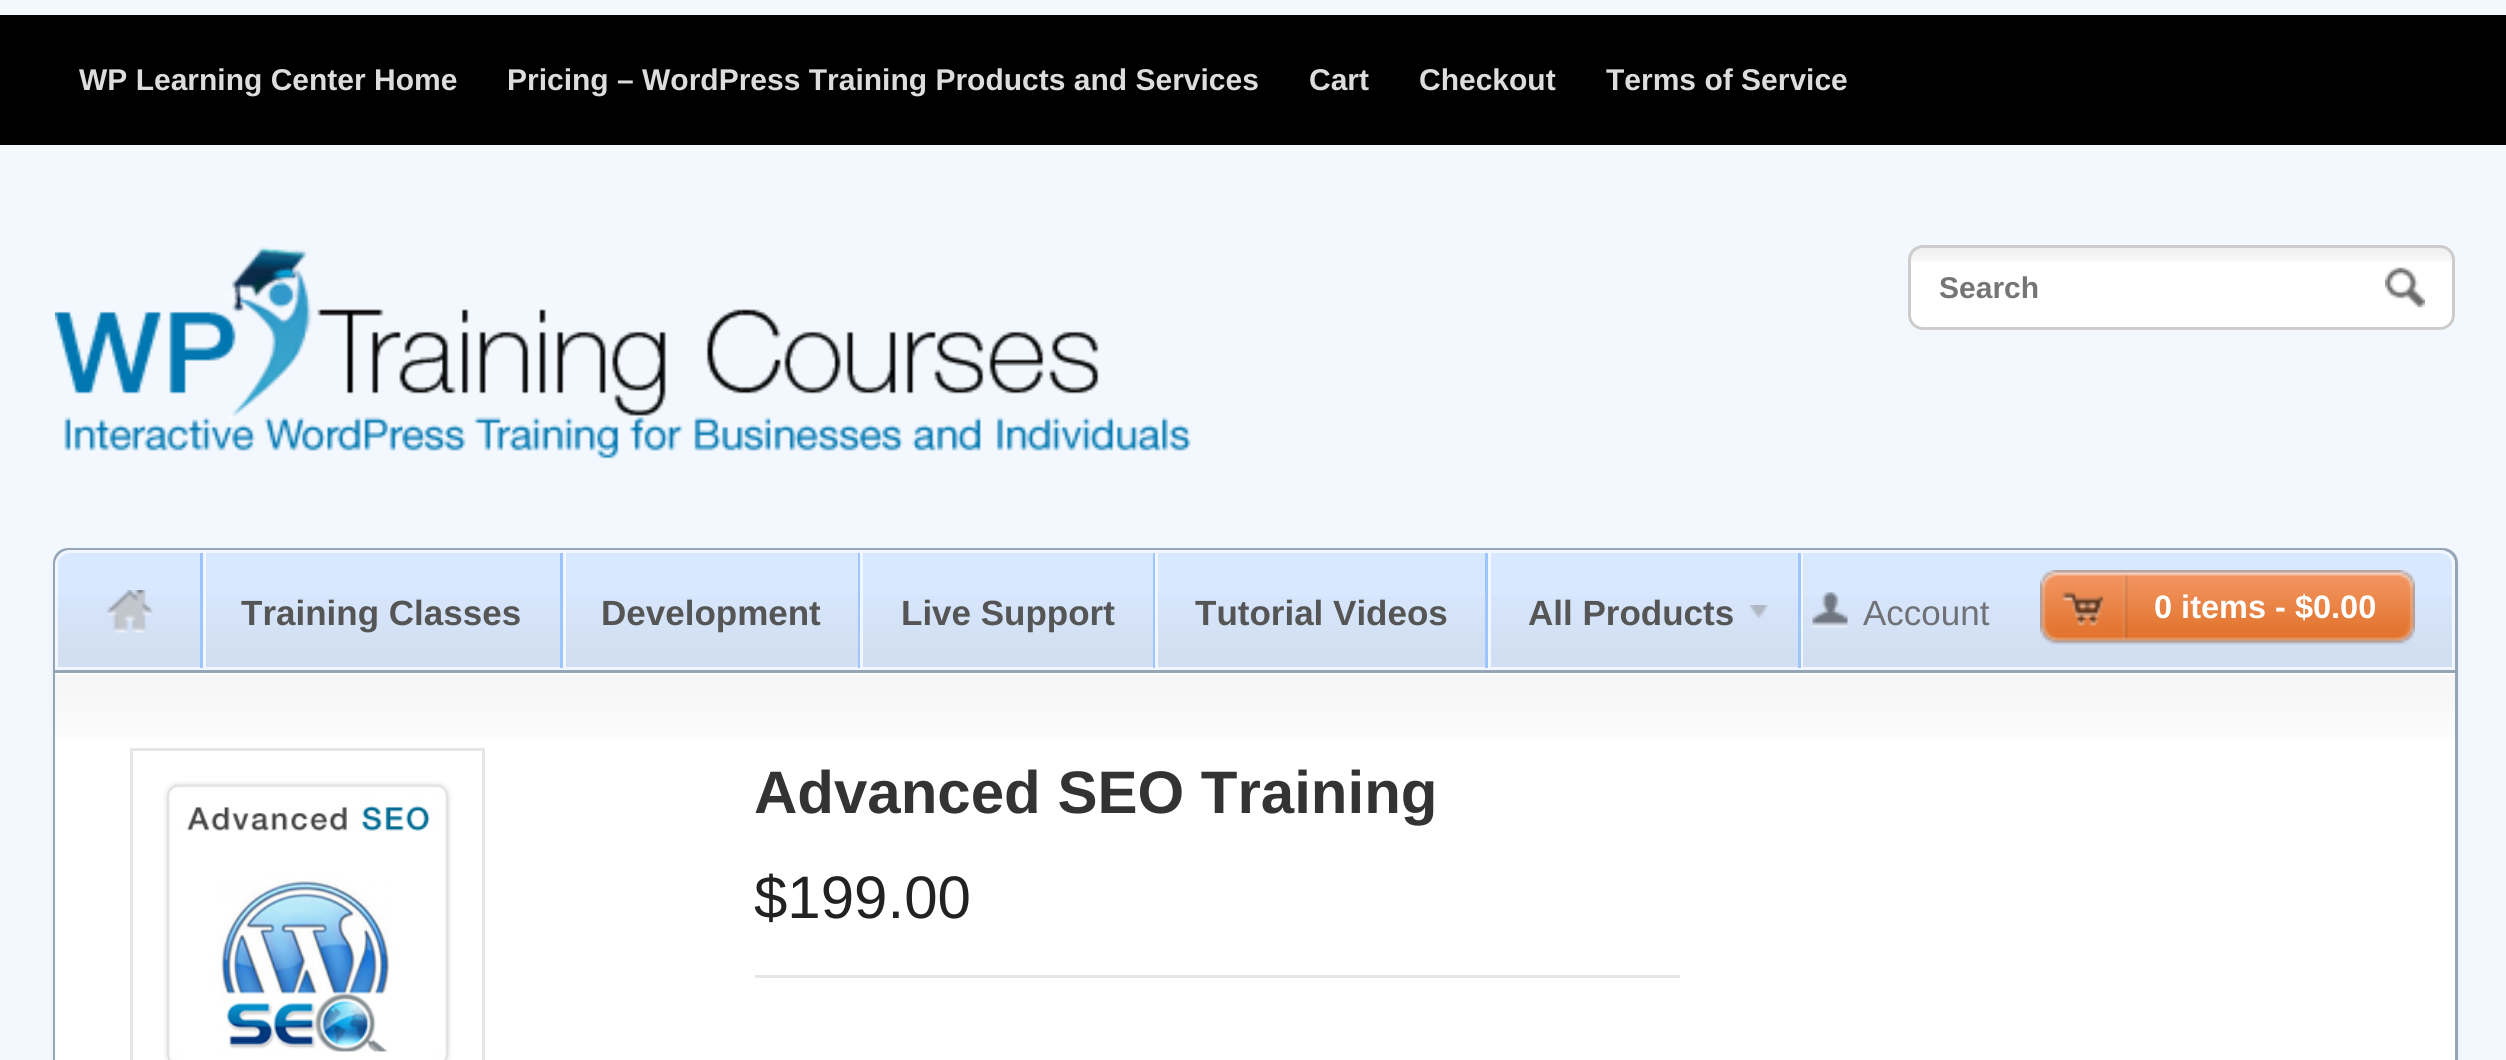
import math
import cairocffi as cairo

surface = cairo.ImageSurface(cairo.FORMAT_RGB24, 2506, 1060)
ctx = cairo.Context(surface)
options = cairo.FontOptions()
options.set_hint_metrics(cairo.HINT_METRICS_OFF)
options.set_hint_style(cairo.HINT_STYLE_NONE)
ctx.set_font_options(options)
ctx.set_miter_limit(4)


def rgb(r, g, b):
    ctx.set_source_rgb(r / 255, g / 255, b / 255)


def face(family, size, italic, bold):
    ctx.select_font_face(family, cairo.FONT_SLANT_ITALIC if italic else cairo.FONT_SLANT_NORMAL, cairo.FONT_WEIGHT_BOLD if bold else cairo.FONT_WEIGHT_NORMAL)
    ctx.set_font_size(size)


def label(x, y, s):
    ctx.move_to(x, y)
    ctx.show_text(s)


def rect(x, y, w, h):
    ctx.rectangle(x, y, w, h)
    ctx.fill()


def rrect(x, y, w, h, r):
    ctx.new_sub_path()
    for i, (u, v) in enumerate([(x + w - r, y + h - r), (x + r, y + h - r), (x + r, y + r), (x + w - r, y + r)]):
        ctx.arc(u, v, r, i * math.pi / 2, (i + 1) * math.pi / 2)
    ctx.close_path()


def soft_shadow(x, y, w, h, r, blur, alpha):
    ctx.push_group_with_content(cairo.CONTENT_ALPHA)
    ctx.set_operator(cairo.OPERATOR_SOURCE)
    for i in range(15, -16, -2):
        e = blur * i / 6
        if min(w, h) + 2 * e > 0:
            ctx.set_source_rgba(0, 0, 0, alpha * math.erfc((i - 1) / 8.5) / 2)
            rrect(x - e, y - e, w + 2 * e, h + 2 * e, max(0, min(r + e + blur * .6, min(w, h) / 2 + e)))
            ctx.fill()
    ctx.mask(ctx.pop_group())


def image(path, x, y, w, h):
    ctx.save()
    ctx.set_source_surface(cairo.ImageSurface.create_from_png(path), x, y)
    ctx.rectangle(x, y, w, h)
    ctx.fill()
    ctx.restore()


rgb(243, 248, 255)
ctx.paint()
rgb(0, 0, 0)
rect(0, 15, 2506, 130)
face('Liberation Sans', 30, 0, 1)
rgb(221, 221, 221)
label(79, 90, 'WP Learning Center Home')
label(507, 90, 'Pricing – WordPress Training Products and Services')
label(1309, 90, 'Cart')
label(1419, 90, 'Checkout')
label(1606, 90, 'Terms of Service')
image('image0.png', 55, 247, 1136, 212)
rgb(255, 255, 255)
rrect(1908, 245, 547, 85, 15)
ctx.fill()
image('image1.png', 1908, 247, 547, 15)
rrect(1909.5, 246.5, 544, 82, 13.5)
rgb(204, 204, 204)
ctx.set_line_width(3)
ctx.stroke()
rgb(117, 117, 117)
label(1939, 298, 'Search')
image('image2.png', 2385, 267, 40, 41)
rgb(0, 0, 0)
soft_shadow(53, 550, 2405, 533, 15, 2.5, 0.05)
rrect(54.5, 549.5, 2402, 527, 13.5)
rgb(149, 165, 182)
ctx.stroke()
rgb(216, 232, 255)
ctx.new_path()
ctx.move_to(70, 550)
ctx.line_to(2440, 550)
ctx.curve_to(2448.5, 550, 2455, 556.5, 2455, 565)
ctx.line_to(2455, 670)
ctx.line_to(55, 670)
ctx.line_to(55, 565)
ctx.curve_to(55, 556.5, 61.5, 550, 70, 550)
ctx.close_path()
ctx.fill()
image('image3.png', 58, 596, 2394, 71)
ctx.new_path()
ctx.move_to(70, 551.5)
ctx.line_to(2440, 551.5)
ctx.curve_to(2447.5, 551.5, 2453.5, 557.5, 2453.5, 565)
ctx.line_to(2453.5, 668.5)
ctx.line_to(56.5, 668.5)
ctx.line_to(56.5, 565)
ctx.curve_to(56.5, 557.5, 62.5, 551.5, 70, 551.5)
ctx.close_path()
rgb(242, 247, 255)
ctx.stroke()
image('image4.png', 107, 590, 46, 43)
rect(1801, 553, 2, 115)
rgb(157, 197, 255)
rect(200, 553, 3, 115)
rect(560, 553, 3, 115)
rgb(242, 247, 255)
rect(203, 553, 3, 115)
face('Liberation Sans', 35, 0, 1)
rgb(85, 85, 85)
label(241, 625, 'Training Classes')
rgb(157, 197, 255)
rect(858, 553, 2, 115)
rgb(242, 247, 255)
rect(563, 553, 3, 115)
rgb(85, 85, 85)
label(601, 625, 'Development')
rgb(157, 197, 255)
rect(1153, 553, 2, 115)
rgb(242, 247, 255)
rect(860, 553, 3, 115)
rgb(85, 85, 85)
label(901, 625, 'Live Support')
rgb(157, 197, 255)
rect(1485, 553, 3, 115)
rgb(242, 247, 255)
rect(1155, 553, 3, 115)
rgb(85, 85, 85)
label(1195, 625, 'Tutorial Videos')
rgb(157, 197, 255)
rect(1798, 553, 3, 115)
rgb(242, 247, 255)
rect(1488, 553, 3, 115)
rgb(85, 85, 85)
label(1528, 625, 'All Products')
image('image5.png', 1750, 605, 18, 13)
image('image6.png', 1812, 592, 36, 36)
face('Liberation Sans', 35, 0, 0)
rgb(111, 113, 118)
label(1863, 625, 'Account')
image('image7.png', 2390, 570, 25, 75)
image('image8.png', 2040, 570, 350, 75)
face('Liberation Sans', 32.5, 0, 1)
rgb(255, 255, 255)
label(2154, 618, '0 items - $0.00')
rect(55, 673, 2400, 387)
image('image9.png', 55, 675, 2400, 62)
rgb(149, 165, 182)
rect(55, 670, 2400, 3)
ctx.rectangle(131.5, 749.5, 352, 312)
rgb(230, 230, 230)
ctx.stroke()
image('image10.png', 163, 781, 289, 279)
face('Liberation Sans', 60, 0, 1)
rgb(51, 51, 51)
label(754, 813, 'Advanced SEO Training')
face('Liberation Sans', 60, 0, 0)
rgb(34, 34, 34)
label(754, 918, '$199.00')
rgb(230, 230, 230)
rect(755, 975, 925, 3)
surface.write_to_png('render.png')
